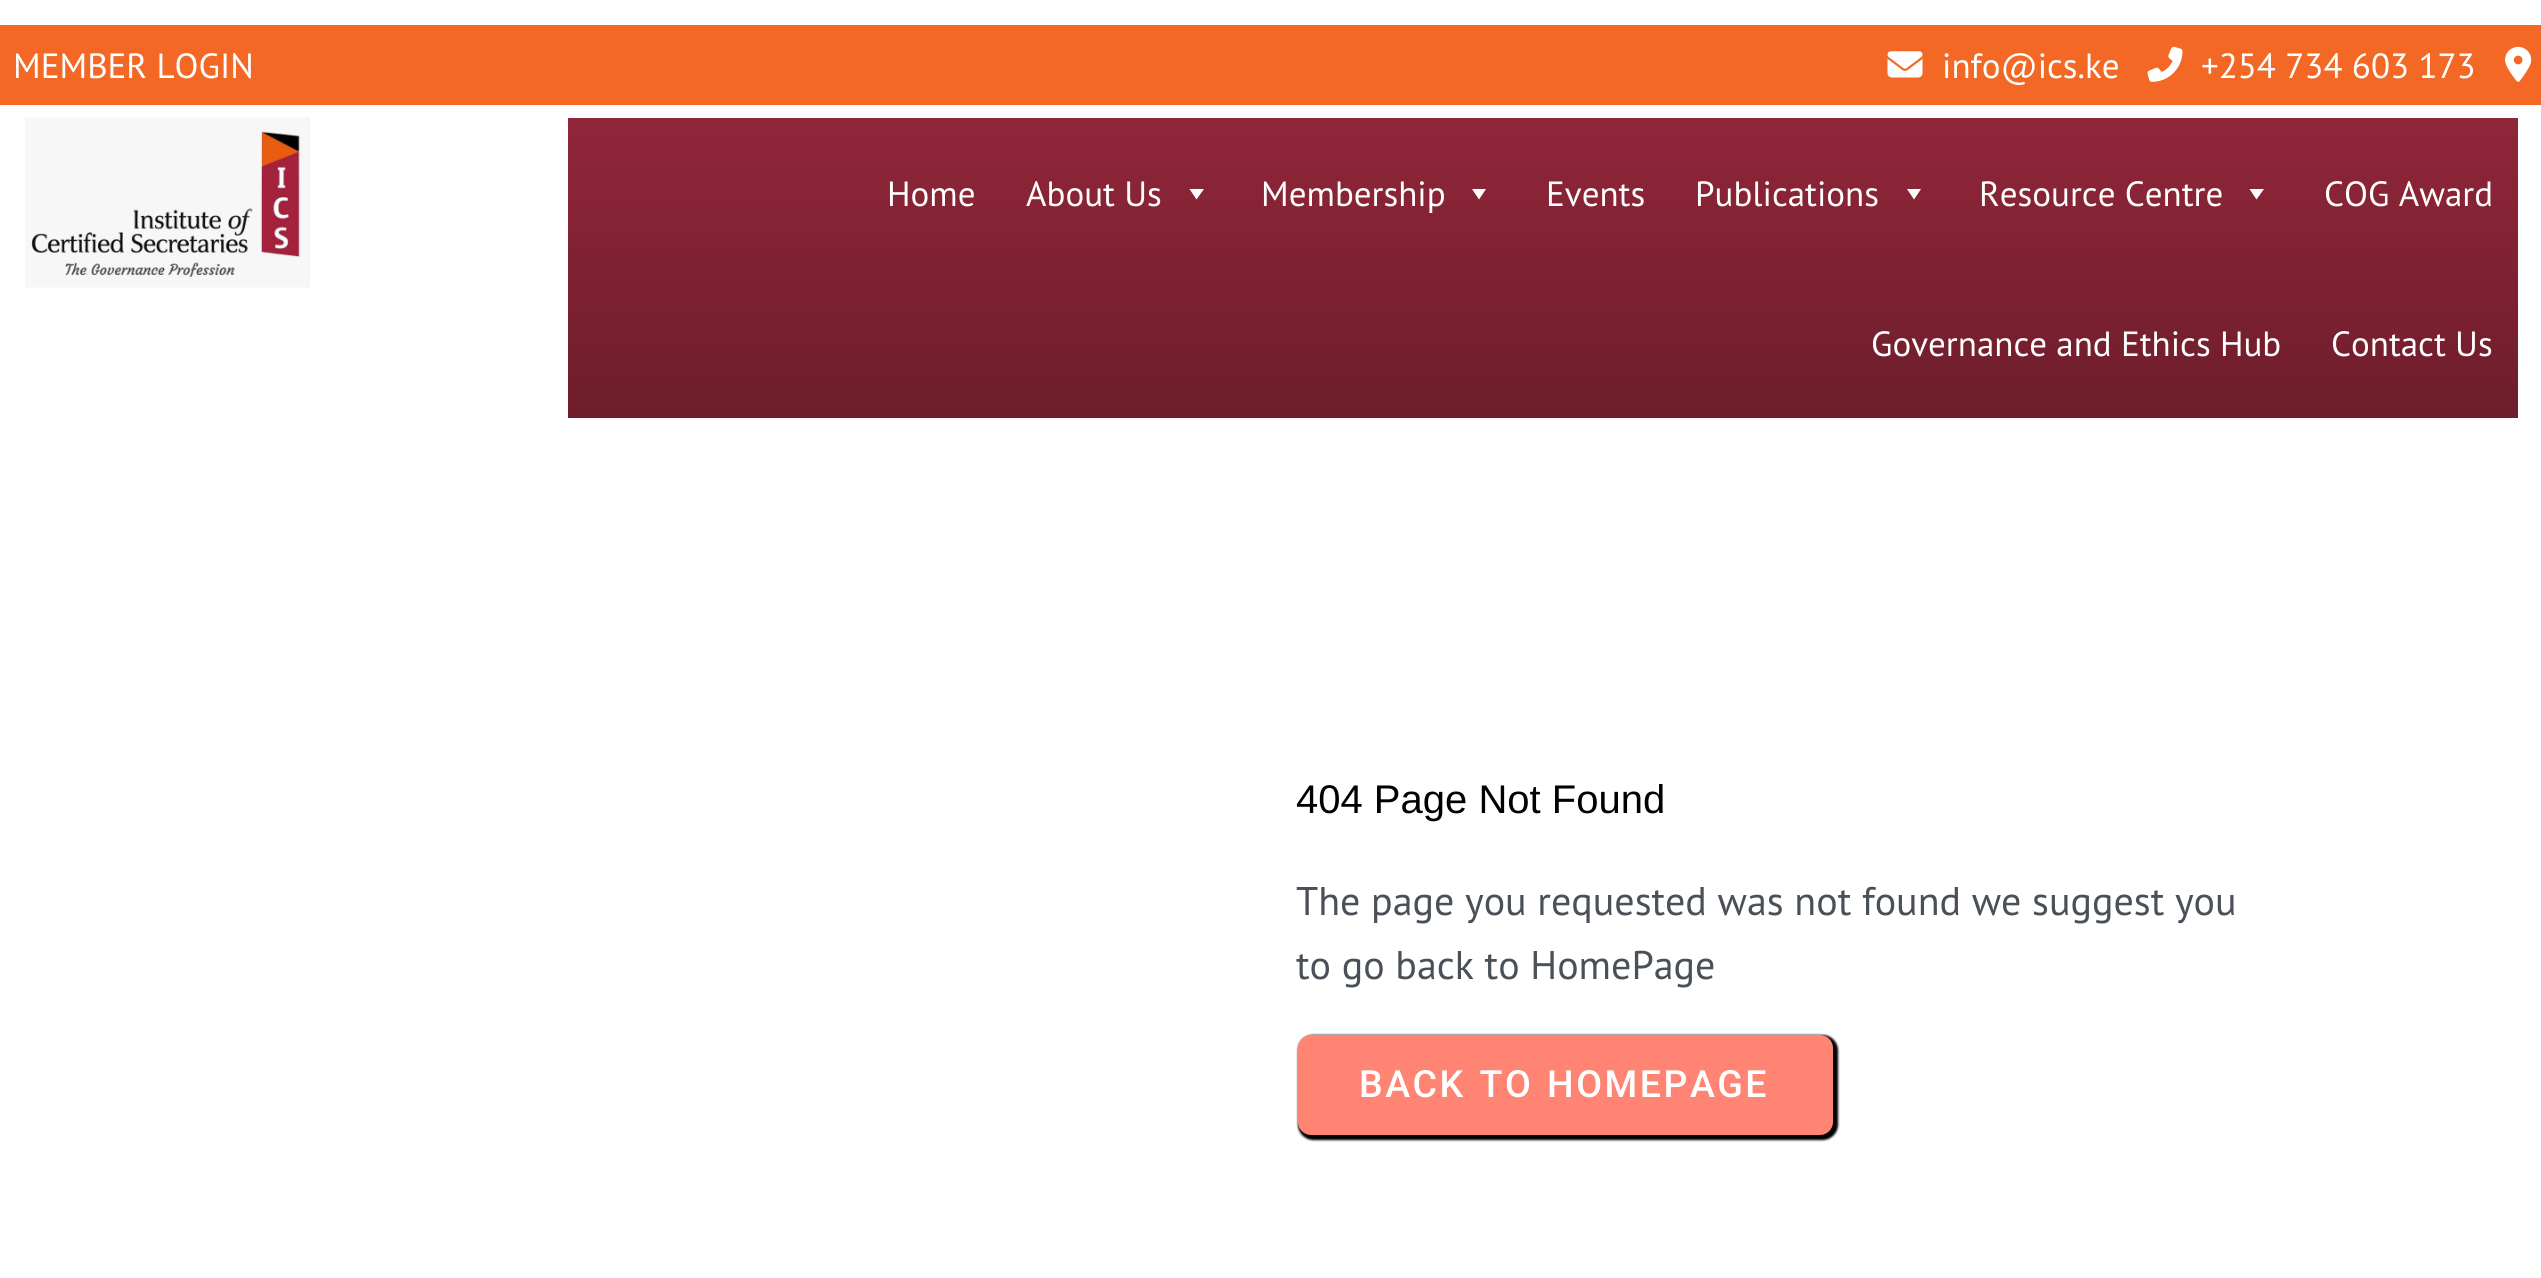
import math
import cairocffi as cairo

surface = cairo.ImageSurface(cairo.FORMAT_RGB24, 2541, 1278)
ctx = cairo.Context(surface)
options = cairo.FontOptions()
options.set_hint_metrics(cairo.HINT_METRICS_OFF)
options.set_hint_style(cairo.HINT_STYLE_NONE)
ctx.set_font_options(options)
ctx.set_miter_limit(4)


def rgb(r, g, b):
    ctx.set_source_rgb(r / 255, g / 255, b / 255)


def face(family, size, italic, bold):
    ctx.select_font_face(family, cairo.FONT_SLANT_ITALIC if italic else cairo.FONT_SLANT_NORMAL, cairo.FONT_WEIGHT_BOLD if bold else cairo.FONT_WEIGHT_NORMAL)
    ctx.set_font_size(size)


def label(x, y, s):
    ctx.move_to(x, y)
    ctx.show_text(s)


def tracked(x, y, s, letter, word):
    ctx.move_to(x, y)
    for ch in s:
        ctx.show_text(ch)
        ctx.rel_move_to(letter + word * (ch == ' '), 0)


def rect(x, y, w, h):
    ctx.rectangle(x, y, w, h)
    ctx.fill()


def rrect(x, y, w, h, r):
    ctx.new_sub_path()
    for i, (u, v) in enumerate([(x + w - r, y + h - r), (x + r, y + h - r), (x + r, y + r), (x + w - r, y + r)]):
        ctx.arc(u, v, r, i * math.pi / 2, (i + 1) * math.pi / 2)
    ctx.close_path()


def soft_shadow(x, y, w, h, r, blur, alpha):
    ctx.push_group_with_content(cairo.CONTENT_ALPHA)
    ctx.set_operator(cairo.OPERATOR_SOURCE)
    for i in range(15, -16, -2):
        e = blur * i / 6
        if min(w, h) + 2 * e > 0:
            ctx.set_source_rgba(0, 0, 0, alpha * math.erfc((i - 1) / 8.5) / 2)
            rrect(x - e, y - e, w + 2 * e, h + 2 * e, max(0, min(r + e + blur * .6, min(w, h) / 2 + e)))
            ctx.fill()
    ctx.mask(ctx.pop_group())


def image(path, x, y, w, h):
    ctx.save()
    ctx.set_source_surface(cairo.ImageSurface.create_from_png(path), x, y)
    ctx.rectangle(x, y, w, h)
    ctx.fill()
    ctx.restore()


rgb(255, 255, 255)
ctx.paint()
rgb(242, 104, 36)
rect(0, 25, 2541, 80)
face('PT Sans', 35, 0, 0)
rgb(255, 255, 255)
label(13, 78, 'MEMBER LOGIN')
image('image0.png', 1887, 51, 36, 27)
label(1942, 78, 'info@ics.ke')
image('image1.png', 2147, 46, 36, 36)
label(2201, 78, '+254 734 603 173')
image('image2.png', 2505, 46, 27, 36)
image('image3.png', 25, 117, 285, 171)
gradient = cairo.LinearGradient(1543, 117, 1543, 418)
gradient.add_color_stop_rgba(0, 0.565, 0.149, 0.224, 1)
gradient.add_color_stop_rgba(1, 0.431, 0.114, 0.169, 1)
ctx.set_source(gradient)
rect(568, 118, 1950, 300)
rgb(255, 255, 255)
label(887, 206, 'Home')
label(1026, 206, 'About Us')
ctx.new_path()
ctx.move_to(1204, 189)
ctx.line_to(1196.5, 199.5)
ctx.line_to(1189.5, 189)
ctx.close_path()
ctx.fill()
label(1261, 206, 'Membership')
ctx.new_path()
ctx.move_to(1486, 189)
ctx.line_to(1479, 199.5)
ctx.line_to(1472, 189)
ctx.close_path()
ctx.fill()
label(1546, 206, 'Events')
label(1695, 206, 'Publications')
ctx.new_path()
ctx.move_to(1921, 189)
ctx.line_to(1914, 199.5)
ctx.line_to(1907, 189)
ctx.close_path()
ctx.fill()
label(1979, 206, 'Resource Centre')
ctx.new_path()
ctx.move_to(2264, 189)
ctx.line_to(2256.5, 199.5)
ctx.line_to(2249.5, 189)
ctx.close_path()
ctx.fill()
label(2324, 206, 'COG Award')
label(1871, 356, 'Governance and Ethics Hub')
label(2331, 356, 'Contact Us')
face('Liberation Sans', 40, 0, 0)
rgb(0, 0, 0)
label(1296, 813, '404 Page Not Found')
face('PT Sans', 40, 0, 0)
rgb(73, 80, 87)
label(1296, 915, 'The page you requested was not found we suggest you')
label(1296, 979, 'to go back to HomePage')
rgb(0, 0, 0)
soft_shadow(1298, 1035, 540, 105, 15, 1, 1)
rgb(255, 132, 116)
rrect(1298, 1035, 535, 100, 13)
ctx.fill()
face('Roboto Medium', 37.5, 0, 0)
rgb(255, 255, 255)
tracked(1359, 1097, 'BACK TO HOMEPAGE', 2.5, 2)
surface.write_to_png('render.png')
